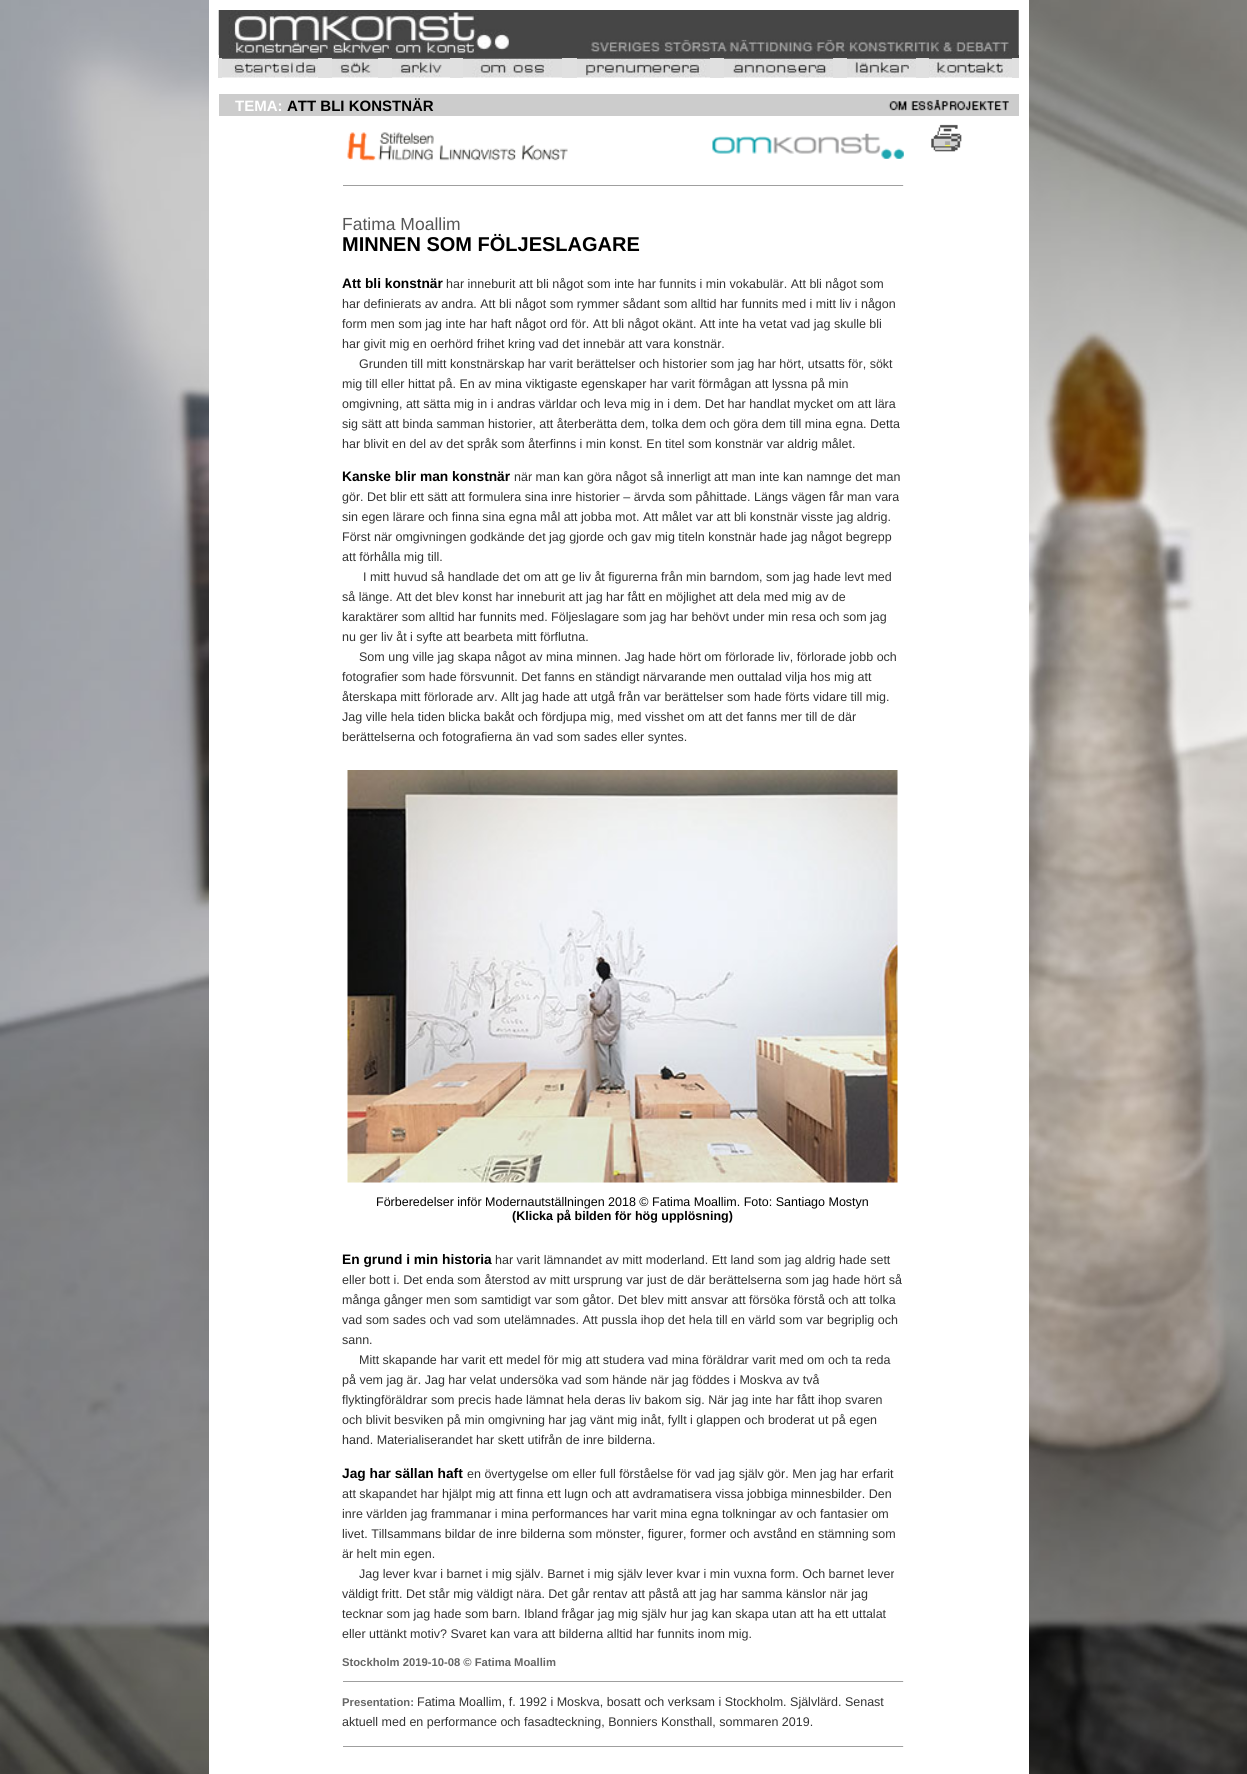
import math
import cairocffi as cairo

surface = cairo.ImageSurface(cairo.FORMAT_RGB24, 1247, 1774)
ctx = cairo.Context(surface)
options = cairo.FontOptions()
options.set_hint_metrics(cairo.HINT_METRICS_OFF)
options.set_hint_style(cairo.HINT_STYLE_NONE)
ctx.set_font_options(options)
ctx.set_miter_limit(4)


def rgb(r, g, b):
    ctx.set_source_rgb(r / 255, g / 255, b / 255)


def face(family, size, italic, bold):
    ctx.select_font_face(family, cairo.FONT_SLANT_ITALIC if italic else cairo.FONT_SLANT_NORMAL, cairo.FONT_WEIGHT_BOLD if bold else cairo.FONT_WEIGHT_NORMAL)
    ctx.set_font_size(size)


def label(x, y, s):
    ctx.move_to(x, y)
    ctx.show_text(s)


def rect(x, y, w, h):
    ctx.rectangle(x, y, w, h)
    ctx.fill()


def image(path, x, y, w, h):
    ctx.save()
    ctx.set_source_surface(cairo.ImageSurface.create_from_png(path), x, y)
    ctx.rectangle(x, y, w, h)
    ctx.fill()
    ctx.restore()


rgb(255, 255, 255)
ctx.paint()
image('image0.png', 0, 0, 1247, 1774)
rgb(255, 255, 255)
rect(209, 0, 820, 1774)
image('image1.png', 218, 10, 801, 45)
rgb(70, 70, 70)
rect(219, 55, 800, 4)
rgb(224, 224, 224)
rect(218, 58, 4, 20)
image('image2.png', 222, 58, 96, 20)
rect(318, 58, 14, 20)
image('image3.png', 332, 58, 46, 20)
rect(378, 58, 14, 20)
image('image4.png', 392, 58, 58, 20)
rect(450, 58, 13, 20)
image('image5.png', 463, 58, 99, 20)
rect(562, 58, 15, 20)
image('image6.png', 577, 58, 133, 20)
rect(710, 58, 14, 20)
image('image7.png', 724, 58, 109, 20)
rect(833, 58, 14, 20)
image('image8.png', 847, 58, 69, 20)
rect(916, 58, 13, 20)
image('image9.png', 929, 58, 83, 20)
rect(1012, 58, 7, 20)
rgb(204, 204, 204)
rect(219, 94, 800, 22)
face('Liberation Sans', 15, 0, 1)
rgb(255, 255, 255)
label(235, 111, 'TEMA:')
rgb(0, 0, 0)
label(287, 111, 'ATT BLI KONSTNÄR')
image('image10.png', 888, 99, 121, 12)
image('image11.png', 931, 124, 31, 28)
image('image12.png', 347, 132, 221, 29)
image('image13.png', 712, 133, 192, 26)
rgb(159, 159, 159)
rect(343, 185, 561, 1)
rgb(238, 238, 238)
rect(903, 185, 1, 1)
face('Liberation Sans', 17.5, 0, 0)
rgb(87, 87, 87)
label(342, 230, 'Fatima Moallim')
face('Liberation Sans', 20, 0, 1)
rgb(0, 0, 0)
label(342, 251, 'MINNEN SOM FÖLJESLAGARE')
face('Liberation Sans', 13.75, 0, 1)
label(342, 288, 'Att bli konstnär')
face('Liberation Sans', 12.5, 0, 0)
rgb(51, 51, 51)
label(446, 288, 'har inneburit att bli något som inte har funnits i min vokabulär. Att bli något som')
label(342, 308, 'har definierats av andra. Att bli något som rymmer sådant som alltid har funnits med i mitt liv i någon')
label(342, 328, 'form men som jag inte har haft något ord för. Att bli något okänt. Att inte ha vetat vad jag skulle bli')
label(342, 348, 'har givit mig en oerhörd frihet kring vad det innebär att vara konstnär.')
label(359, 368, 'Grunden till mitt konstnärskap har varit berättelser och historier som jag har hört, utsatts för, sökt')
label(342, 388, 'mig till eller hittat på. En av mina viktigaste egenskaper har varit förmågan att lyssna på min')
label(342, 408, 'omgivning, att sätta mig in i andras världar och leva mig in i dem. Det har handlat mycket om att lära')
label(342, 428, 'sig sätt att binda samman historier, att återberätta dem, tolka dem och göra dem till mina egna. Detta')
label(342, 448, 'har blivit en del av det språk som återfinns i min konst. En titel som konstnär var aldrig målet.')
face('Liberation Sans', 13.75, 0, 1)
rgb(0, 0, 0)
label(342, 481, 'Kanske blir man konstnär')
face('Liberation Sans', 12.5, 0, 0)
rgb(51, 51, 51)
label(514, 481, 'när man kan göra något så innerligt att man inte kan namnge det man')
label(342, 501, 'gör. Det blir ett sätt att formulera sina inre historier – ärvda som påhittade. Längs vägen får man vara')
label(342, 521, 'sin egen lärare och finna sina egna mål att jobba mot. Att målet var att bli konstnär visste jag aldrig.')
label(342, 541, 'Först när omgivningen godkände det jag gjorde och gav mig titeln konstnär hade jag något begrepp')
label(342, 561, 'att förhålla mig till.')
label(363, 581, 'I mitt huvud så handlade det om att ge liv åt figurerna från min barndom, som jag hade levt med')
label(342, 601, 'så länge. Att det blev konst har inneburit att jag har fått en möjlighet att dela med mig av de')
label(342, 621, 'karaktärer som alltid har funnits med. Följeslagare som jag har behövt under min resa och som jag')
label(342, 641, 'nu ger liv åt i syfte att bearbeta mitt förflutna.')
label(359, 661, 'Som ung ville jag skapa något av mina minnen. Jag hade hört om förlorade liv, förlorade jobb och')
label(342, 681, 'fotografier som hade försvunnit. Det fanns en ständigt närvarande men outtalad vilja hos mig att')
label(342, 701, 'återskapa mitt förlorade arv. Allt jag hade att utgå från var berättelser som hade förts vidare till mig.')
label(342, 721, 'Jag ville hela tiden blicka bakåt och fördjupa mig, med visshet om att det fanns mer till de där')
label(342, 741, 'berättelserna och fotografierna än vad som sades eller syntes.')
image('image14.png', 347, 770, 551, 413)
rgb(0, 0, 0)
label(376, 1206, 'Förberedelser inför Modernautställningen 2018 © Fatima Moallim. Foto: Santiago Mostyn')
face('Liberation Sans', 12.5, 0, 1)
label(512, 1220, '(Klicka på bilden för hög upplösning)')
face('Liberation Sans', 13.75, 0, 1)
label(342, 1264, 'En grund i min historia')
face('Liberation Sans', 12.5, 0, 0)
rgb(51, 51, 51)
label(495, 1264, 'har varit lämnandet av mitt moderland. Ett land som jag aldrig hade sett')
label(342, 1284, 'eller bott i. Det enda som återstod av mitt ursprung var just de där berättelserna som jag hade hört så')
label(342, 1304, 'många gånger men som samtidigt var som gåtor. Det blev mitt ansvar att försöka förstå och att tolka')
label(342, 1324, 'vad som sades och vad som utelämnades. Att pussla ihop det hela till en värld som var begriplig och')
label(342, 1344, 'sann.')
label(359, 1364, 'Mitt skapande har varit ett medel för mig att studera vad mina föräldrar varit med om och ta reda')
label(342, 1384, 'på vem jag är. Jag har velat undersöka vad som hände när jag föddes i Moskva av två')
label(342, 1404, 'flyktingföräldrar som precis hade lämnat hela deras liv bakom sig. När jag inte har fått ihop svaren')
label(342, 1424, 'och blivit besviken på min omgivning har jag vänt mig inåt, fyllt i glappen och broderat ut på egen')
label(342, 1444, 'hand. Materialiserandet har skett utifrån de inre bilderna.')
face('Liberation Sans', 13.75, 0, 1)
rgb(0, 0, 0)
label(342, 1478, 'Jag har sällan haft')
face('Liberation Sans', 12.5, 0, 0)
rgb(51, 51, 51)
label(467, 1478, 'en övertygelse om eller full förståelse för vad jag själv gör. Men jag har erfarit')
label(342, 1498, 'att skapandet har hjälpt mig att finna ett lugn och att avdramatisera vissa jobbiga minnesbilder. Den')
label(342, 1518, 'inre världen jag frammanar i mina performances har varit mina egna tolkningar av och fantasier om')
label(342, 1538, 'livet. Tillsammans bildar de inre bilderna som mönster, figurer, former och avstånd en stämning som')
label(342, 1558, 'är helt min egen.')
label(359, 1578, 'Jag lever kvar i barnet i mig själv. Barnet i mig själv lever kvar i min vuxna form. Och barnet lever')
label(342, 1598, 'väldigt fritt. Det står mig väldigt nära. Det går rentav att påstå att jag har samma känslor när jag')
label(342, 1618, 'tecknar som jag hade som barn. Ibland frågar jag mig själv hur jag kan skapa utan att ha ett uttalat')
label(342, 1638, 'eller uttänkt motiv? Svaret kan vara att bilderna alltid har funnits inom mig.')
face('Liberation Sans', 11.25, 0, 1)
rgb(102, 102, 102)
label(342, 1666, 'Stockholm 2019-10-08 © Fatima Moallim')
rgb(159, 159, 159)
rect(343, 1681, 561, 1)
rgb(238, 238, 238)
rect(903, 1681, 1, 1)
rgb(102, 102, 102)
label(342, 1706, 'Presentation:')
face('Liberation Sans', 12.5, 0, 0)
rgb(51, 51, 51)
label(417, 1706, 'Fatima Moallim, f. 1992 i Moskva, bosatt och verksam i Stockholm. Självlärd. Senast')
label(342, 1726, 'aktuell med en performance och fasadteckning, Bonniers Konsthall, sommaren 2019.')
rgb(159, 159, 159)
rect(343, 1746, 561, 1)
rgb(238, 238, 238)
rect(903, 1746, 1, 1)
surface.write_to_png('render.png')
